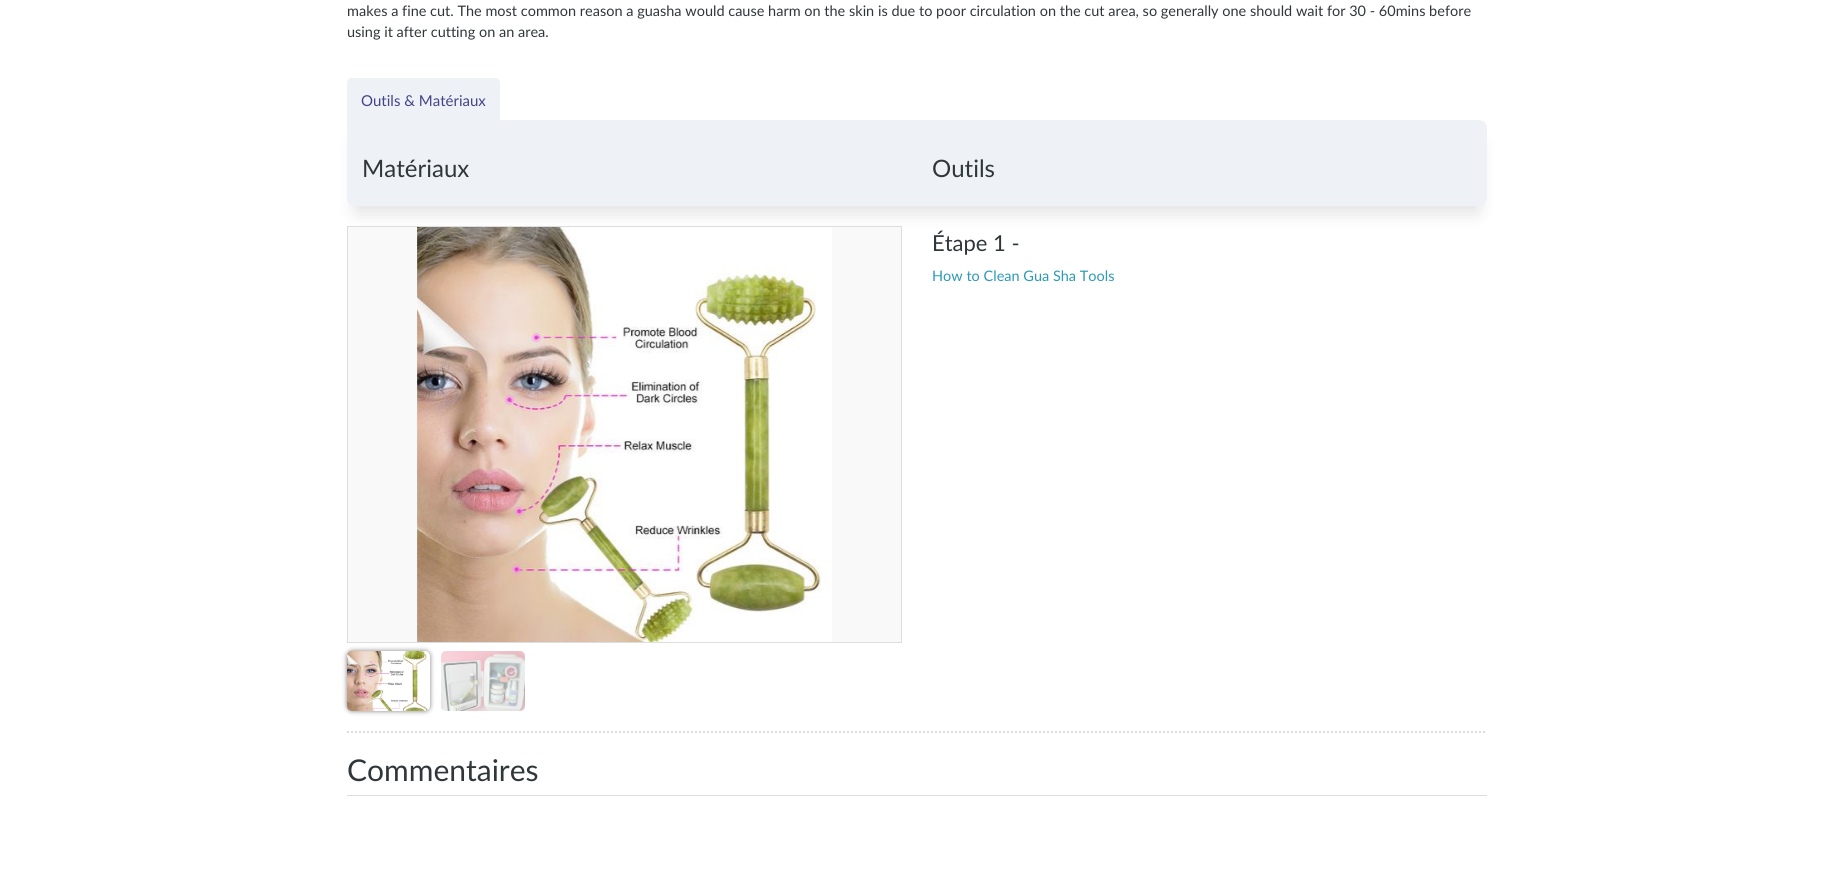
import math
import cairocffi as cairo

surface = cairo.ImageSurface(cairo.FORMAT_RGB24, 1834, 896)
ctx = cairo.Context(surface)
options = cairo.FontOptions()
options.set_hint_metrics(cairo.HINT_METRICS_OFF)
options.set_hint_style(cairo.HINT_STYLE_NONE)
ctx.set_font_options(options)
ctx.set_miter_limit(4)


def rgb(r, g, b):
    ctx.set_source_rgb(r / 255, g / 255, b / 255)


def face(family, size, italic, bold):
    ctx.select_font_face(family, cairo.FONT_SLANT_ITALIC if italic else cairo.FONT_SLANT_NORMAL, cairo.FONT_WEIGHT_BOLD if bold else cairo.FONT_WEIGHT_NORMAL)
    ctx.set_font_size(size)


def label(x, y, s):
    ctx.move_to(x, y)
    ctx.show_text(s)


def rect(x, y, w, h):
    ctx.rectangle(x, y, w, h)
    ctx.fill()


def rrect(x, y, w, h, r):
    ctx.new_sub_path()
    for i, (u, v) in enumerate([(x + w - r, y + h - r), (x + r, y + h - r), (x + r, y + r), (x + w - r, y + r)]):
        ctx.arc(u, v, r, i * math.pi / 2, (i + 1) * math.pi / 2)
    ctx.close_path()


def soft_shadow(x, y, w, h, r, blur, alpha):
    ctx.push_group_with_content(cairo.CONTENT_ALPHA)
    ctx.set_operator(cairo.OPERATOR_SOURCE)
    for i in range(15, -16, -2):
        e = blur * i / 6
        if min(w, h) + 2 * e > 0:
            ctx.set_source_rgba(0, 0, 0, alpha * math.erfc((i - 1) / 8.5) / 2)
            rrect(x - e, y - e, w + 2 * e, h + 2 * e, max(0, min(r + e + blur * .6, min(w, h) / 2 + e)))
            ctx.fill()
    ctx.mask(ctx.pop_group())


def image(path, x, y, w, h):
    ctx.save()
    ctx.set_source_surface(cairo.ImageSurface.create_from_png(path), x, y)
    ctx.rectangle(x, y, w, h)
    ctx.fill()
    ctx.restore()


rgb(255, 255, 255)
ctx.paint()
face('Lato', 14.5, 0, 0)
rgb(48, 55, 59)
label(347, 16, 'makes a fine cut. The most common reason a guasha would cause harm on the skin is due to poor circulation on the cut area, so generally one should wait for 30 - 60mins before')
label(347, 37, 'using it after cutting on an area.')
rgb(0, 0, 0)
soft_shadow(357, 145, 1120, 66, 0, 10, 0.14)
rgb(238, 242, 246)
rrect(347, 120, 1140, 86, 8)
ctx.fill()
ctx.new_path()
ctx.move_to(352, 78)
ctx.line_to(495, 78)
ctx.curve_to(498, 78, 500, 80, 500, 83)
ctx.line_to(500, 129)
ctx.line_to(347, 129)
ctx.line_to(347, 83)
ctx.curve_to(347, 80, 349, 78, 352, 78)
ctx.close_path()
ctx.fill()
face('Lato', 15, 0, 0)
rgb(68, 68, 136)
label(361, 106, 'Outils & Matériaux')
face('Lato', 24, 0, 0)
rgb(48, 55, 59)
label(362, 177, 'Matériaux')
label(932, 177, 'Outils')
rgb(0, 0, 0)
soft_shadow(347, 651, 83, 60, 5, 2.5, 0.5)
rgb(249, 249, 249)
ctx.rectangle(347.5, 226.5, 554, 416)
ctx.fill_preserve()
rgb(221, 221, 221)
ctx.set_line_width(1)
ctx.stroke()
image('image0.png', 417, 227, 415, 415)
image('image1.png', 347, 651, 83, 60)
rgb(249, 249, 249)
rrect(441, 651, 84, 60, 5)
ctx.fill()
image('image2.png', 441, 651, 84, 60)
face('Lato', 22, 0, 0)
rgb(48, 55, 59)
label(932, 251, 'Étape 1 -')
face('Lato', 14.5, 0, 0)
rgb(44, 154, 183)
label(932, 281, 'How to Clean Gua Sha Tools')
ctx.new_path()
ctx.move_to(347, 732)
ctx.line_to(1487, 732)
rgb(221, 221, 221)
ctx.set_line_width(2)
ctx.set_dash([2, 2])
ctx.stroke()
rect(347, 795, 1140, 1)
face('Lato', 30, 0, 0)
rgb(48, 55, 59)
label(347, 781, 'Commentaires')
surface.write_to_png('render.png')
